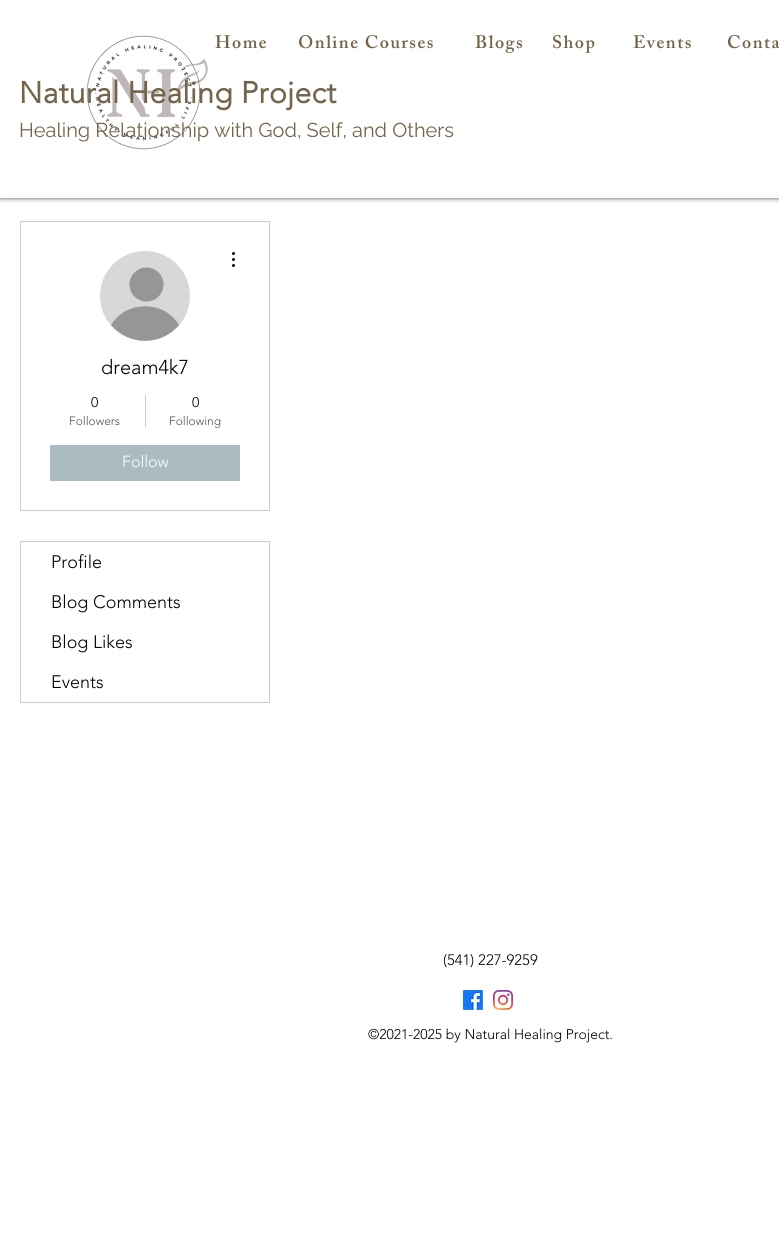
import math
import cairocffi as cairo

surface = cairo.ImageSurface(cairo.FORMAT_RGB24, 779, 1256)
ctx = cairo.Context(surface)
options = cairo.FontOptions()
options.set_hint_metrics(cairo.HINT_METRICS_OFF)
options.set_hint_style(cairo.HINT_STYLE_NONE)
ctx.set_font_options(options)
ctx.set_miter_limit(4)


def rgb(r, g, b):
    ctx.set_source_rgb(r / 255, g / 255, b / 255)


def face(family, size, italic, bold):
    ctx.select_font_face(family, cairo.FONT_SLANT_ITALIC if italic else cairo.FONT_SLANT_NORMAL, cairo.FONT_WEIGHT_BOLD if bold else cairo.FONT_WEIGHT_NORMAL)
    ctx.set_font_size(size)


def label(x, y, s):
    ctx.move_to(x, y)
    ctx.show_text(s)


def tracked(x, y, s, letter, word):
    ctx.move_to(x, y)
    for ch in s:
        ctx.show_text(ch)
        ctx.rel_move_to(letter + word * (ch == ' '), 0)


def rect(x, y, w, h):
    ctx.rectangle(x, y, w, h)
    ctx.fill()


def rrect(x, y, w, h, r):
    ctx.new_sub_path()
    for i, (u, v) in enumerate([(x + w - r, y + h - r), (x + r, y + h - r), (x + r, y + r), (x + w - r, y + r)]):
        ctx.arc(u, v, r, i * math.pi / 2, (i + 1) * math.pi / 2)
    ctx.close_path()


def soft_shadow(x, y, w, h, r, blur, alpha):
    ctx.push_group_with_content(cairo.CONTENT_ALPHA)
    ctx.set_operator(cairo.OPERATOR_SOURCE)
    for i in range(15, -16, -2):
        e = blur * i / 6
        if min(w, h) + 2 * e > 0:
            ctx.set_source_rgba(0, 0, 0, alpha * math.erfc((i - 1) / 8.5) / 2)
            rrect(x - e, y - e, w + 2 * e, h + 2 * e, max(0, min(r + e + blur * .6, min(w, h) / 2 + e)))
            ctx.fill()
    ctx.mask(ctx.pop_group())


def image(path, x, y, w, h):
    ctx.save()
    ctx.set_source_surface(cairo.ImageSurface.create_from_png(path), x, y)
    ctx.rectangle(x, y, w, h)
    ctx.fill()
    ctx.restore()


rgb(255, 255, 255)
ctx.paint()
rgb(0, 0, 0)
soft_shadow(0, 0, 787, 198, 0, 2.5, 0.7)
rgb(255, 255, 255)
rect(0, 0, 779, 198)
face('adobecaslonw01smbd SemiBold', 18, 0, 0)
rgb(116, 100, 73)
tracked(215, 48, 'Home', 1.5, 0)
tracked(298, 48, 'Online Courses', 1.5, 0)
tracked(475, 48, 'Blogs', 1.5, 0)
tracked(552, 48, 'Shop', 1.5, 0)
tracked(633, 48, 'Events', 1.5, 0)
tracked(727, 48, 'Conta', 1.5, 0)
image('image0.png', 86, 35, 122, 115)
face('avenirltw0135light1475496', 30, 0, 1)
tracked(19, 103, 'Natural Healing Project', 0.3, 0)
face('Raleway', 20, 0, 0)
label(19, 137, 'Healing Relationship with God, Self, and Others')
ctx.rectangle(20.5, 221.5, 249, 289)
rgb(204, 204, 204)
ctx.set_line_width(1)
ctx.stroke()
rgb(216, 216, 216)
ctx.arc(145, 296, 45, 0, 2 * math.pi)
ctx.fill()
rgb(150, 150, 150)
ctx.arc(146.5, 284.5, 17, 0, 2 * math.pi)
ctx.fill()
ctx.new_path()
ctx.move_to(179, 325)
ctx.curve_to(161, 346, 129, 346, 111, 325)
ctx.curve_to(126, 300, 164, 300, 179, 325)
ctx.close_path()
ctx.fill()
image('image1.png', 232, 252, 3, 15)
face('avenirltw0135light1475496 Light', 20, 0, 0)
rgb(0, 0, 0)
label(101, 374, 'dream4k7')
face('avenirltw0135light1475496 Light', 14, 0, 0)
label(91, 407, '0')
face('avenirltw0135light1475496 Light', 12, 0, 0)
rgb(77, 77, 77)
label(69, 425, 'Followers')
rgb(204, 204, 204)
rect(145, 395, 1, 32)
face('avenirltw0135light1475496 Light', 14, 0, 0)
rgb(0, 0, 0)
label(192, 407, '0')
face('avenirltw0135light1475496 Light', 12, 0, 0)
rgb(77, 77, 77)
label(169, 425, 'Following')
rgb(170, 188, 191)
rect(50, 445, 190, 36)
face('avenirltw0135light1475496 Light', 16, 0, 0)
rgb(255, 255, 255)
label(122, 467, 'Follow')
ctx.rectangle(20.5, 541.5, 249, 161)
rgb(204, 204, 204)
ctx.stroke()
face('avenirltw0135light1475496 Light', 18, 0, 0)
rgb(0, 0, 0)
label(51, 568, 'Profile')
label(51, 608, 'Blog Comments')
label(51, 648, 'Blog Likes')
label(51, 688, 'Events')
face('avenirltw0135light1475496 Light', 15, 0, 0)
label(443, 965, '(541) 227-9259')
image('image2.png', 463, 990, 20, 20)
image('image3.png', 493, 990, 20, 20)
face('avenirltw0135light1475496 Light', 14, 0, 0)
label(368, 1039, '©2021-2025 by Natural Healing Project.')
surface.write_to_png('render.png')
